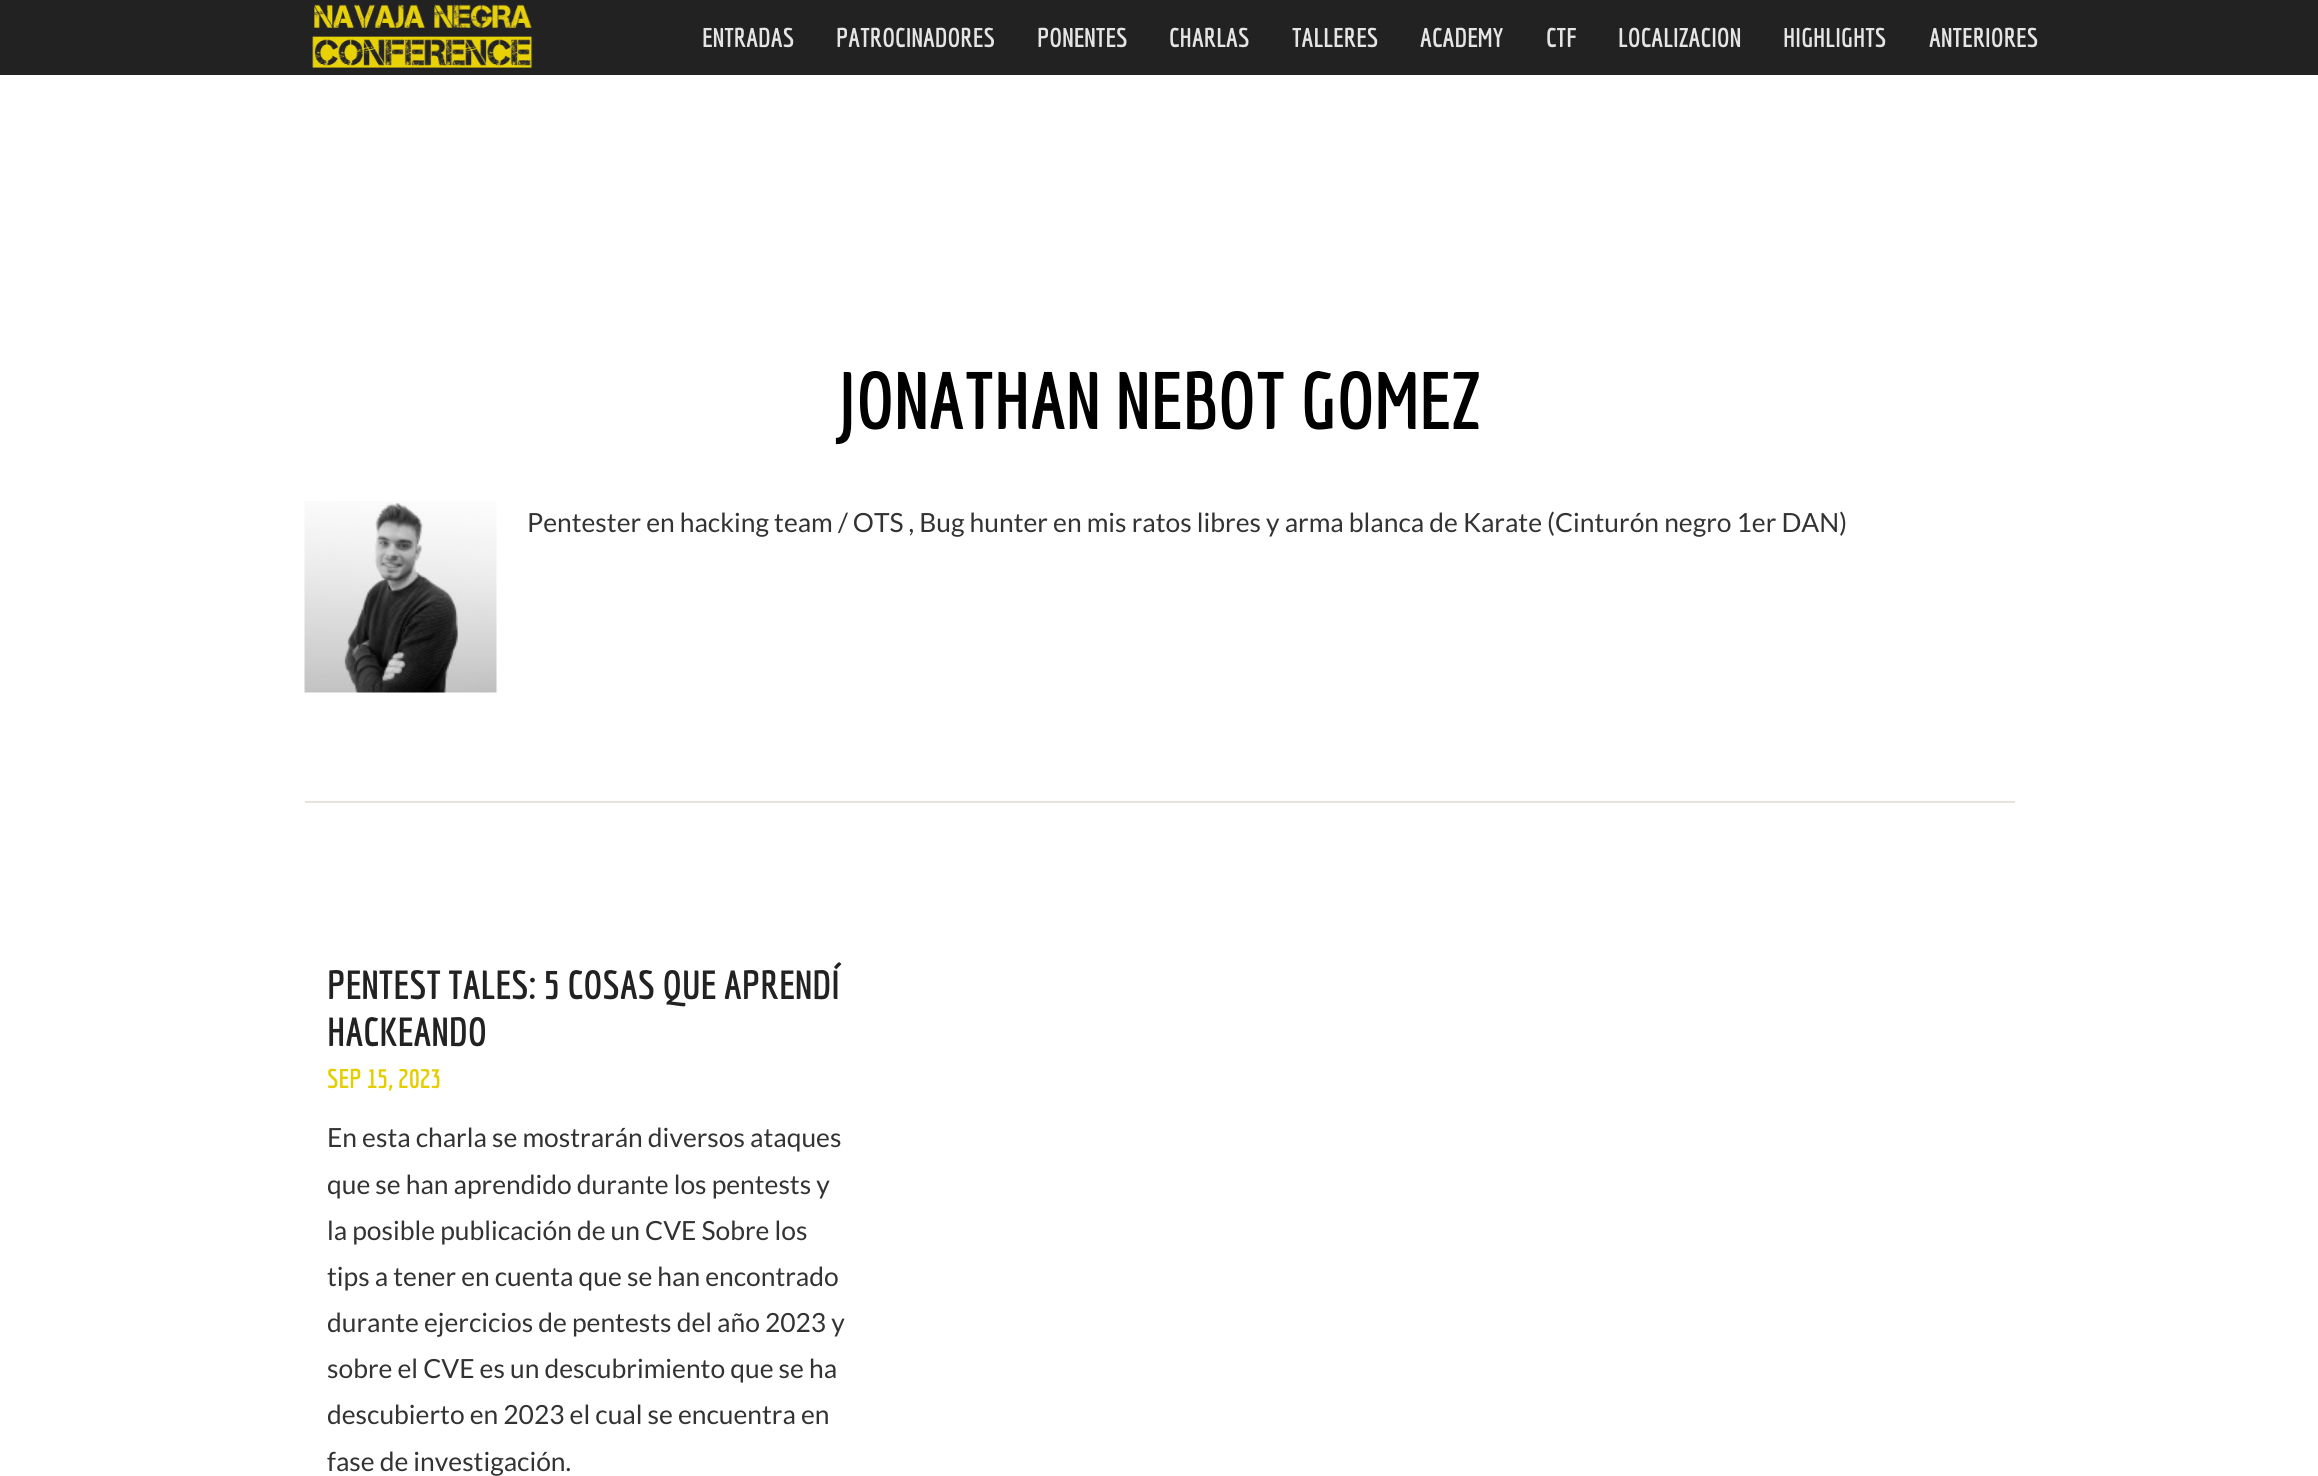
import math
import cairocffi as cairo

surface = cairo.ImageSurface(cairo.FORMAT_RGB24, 2318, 1476)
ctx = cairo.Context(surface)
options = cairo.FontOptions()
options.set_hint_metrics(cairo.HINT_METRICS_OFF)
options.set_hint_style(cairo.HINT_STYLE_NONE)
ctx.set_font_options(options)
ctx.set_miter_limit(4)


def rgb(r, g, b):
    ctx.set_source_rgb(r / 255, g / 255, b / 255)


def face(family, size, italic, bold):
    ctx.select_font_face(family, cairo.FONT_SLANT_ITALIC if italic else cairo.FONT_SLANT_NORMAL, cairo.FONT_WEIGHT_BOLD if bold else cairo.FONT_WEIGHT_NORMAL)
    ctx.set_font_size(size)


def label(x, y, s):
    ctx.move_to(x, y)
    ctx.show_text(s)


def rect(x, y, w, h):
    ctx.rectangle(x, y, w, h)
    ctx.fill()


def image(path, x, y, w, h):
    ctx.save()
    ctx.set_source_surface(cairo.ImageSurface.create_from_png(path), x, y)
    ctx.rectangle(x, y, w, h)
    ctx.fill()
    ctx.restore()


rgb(255, 255, 255)
ctx.paint()
rgb(34, 34, 34)
rect(0, 0, 2318, 75)
image('image0.png', 311, 3, 222, 66)
face('Economica', 26.4, 0, 1)
rgb(229, 229, 229)
label(702, 47, 'ENTRADAS')
label(836, 47, 'PATROCINADORES')
label(1037, 47, 'PONENTES')
label(1169, 47, 'CHARLAS')
label(1292, 47, 'TALLERES')
label(1420, 47, 'ACADEMY')
label(1546, 47, 'CTF')
label(1618, 47, 'LOCALIZACION')
label(1783, 47, 'HIGHLIGHTS')
label(1929, 47, 'ANTERIORES')
face('Economica', 79.25, 0, 1)
rgb(0, 0, 0)
label(839, 429, 'JONATHAN NEBOT GOMEZ')
image('image1.png', 304, 501, 193, 192)
face('Lato', 26.4, 0, 0)
rgb(51, 51, 51)
label(527, 532, 'Pentester en hacking team / OTS , Bug hunter en mis ratos libres y arma blanca de Karate (Cinturón negro 1er DAN)')
rgb(230, 228, 221)
rect(305, 801, 1710, 2)
face('Economica', 39.6, 0, 1)
rgb(34, 34, 34)
label(327, 999, 'PENTEST TALES: 5 COSAS QUE APRENDÍ')
label(327, 1046, 'HACKEANDO')
face('Economica', 26.4, 0, 1)
rgb(229, 206, 0)
label(327, 1088, 'SEP 15, 2023')
face('Lato', 26.4, 0, 0)
rgb(51, 51, 51)
label(327, 1147, 'En esta charla se mostrarán diversos ataques')
label(327, 1194, 'que se han aprendido durante los pentests y')
label(327, 1240, 'la posible publicación de un CVE Sobre los')
label(327, 1286, 'tips a tener en cuenta que se han encontrado')
label(327, 1332, 'durante ejercicios de pentests del año 2023 y')
label(327, 1378, 'sobre el CVE es un descubrimiento que se ha')
label(327, 1424, 'descubierto en 2023 el cual se encuentra en')
label(327, 1471, 'fase de investigación.')
surface.write_to_png('render.png')
